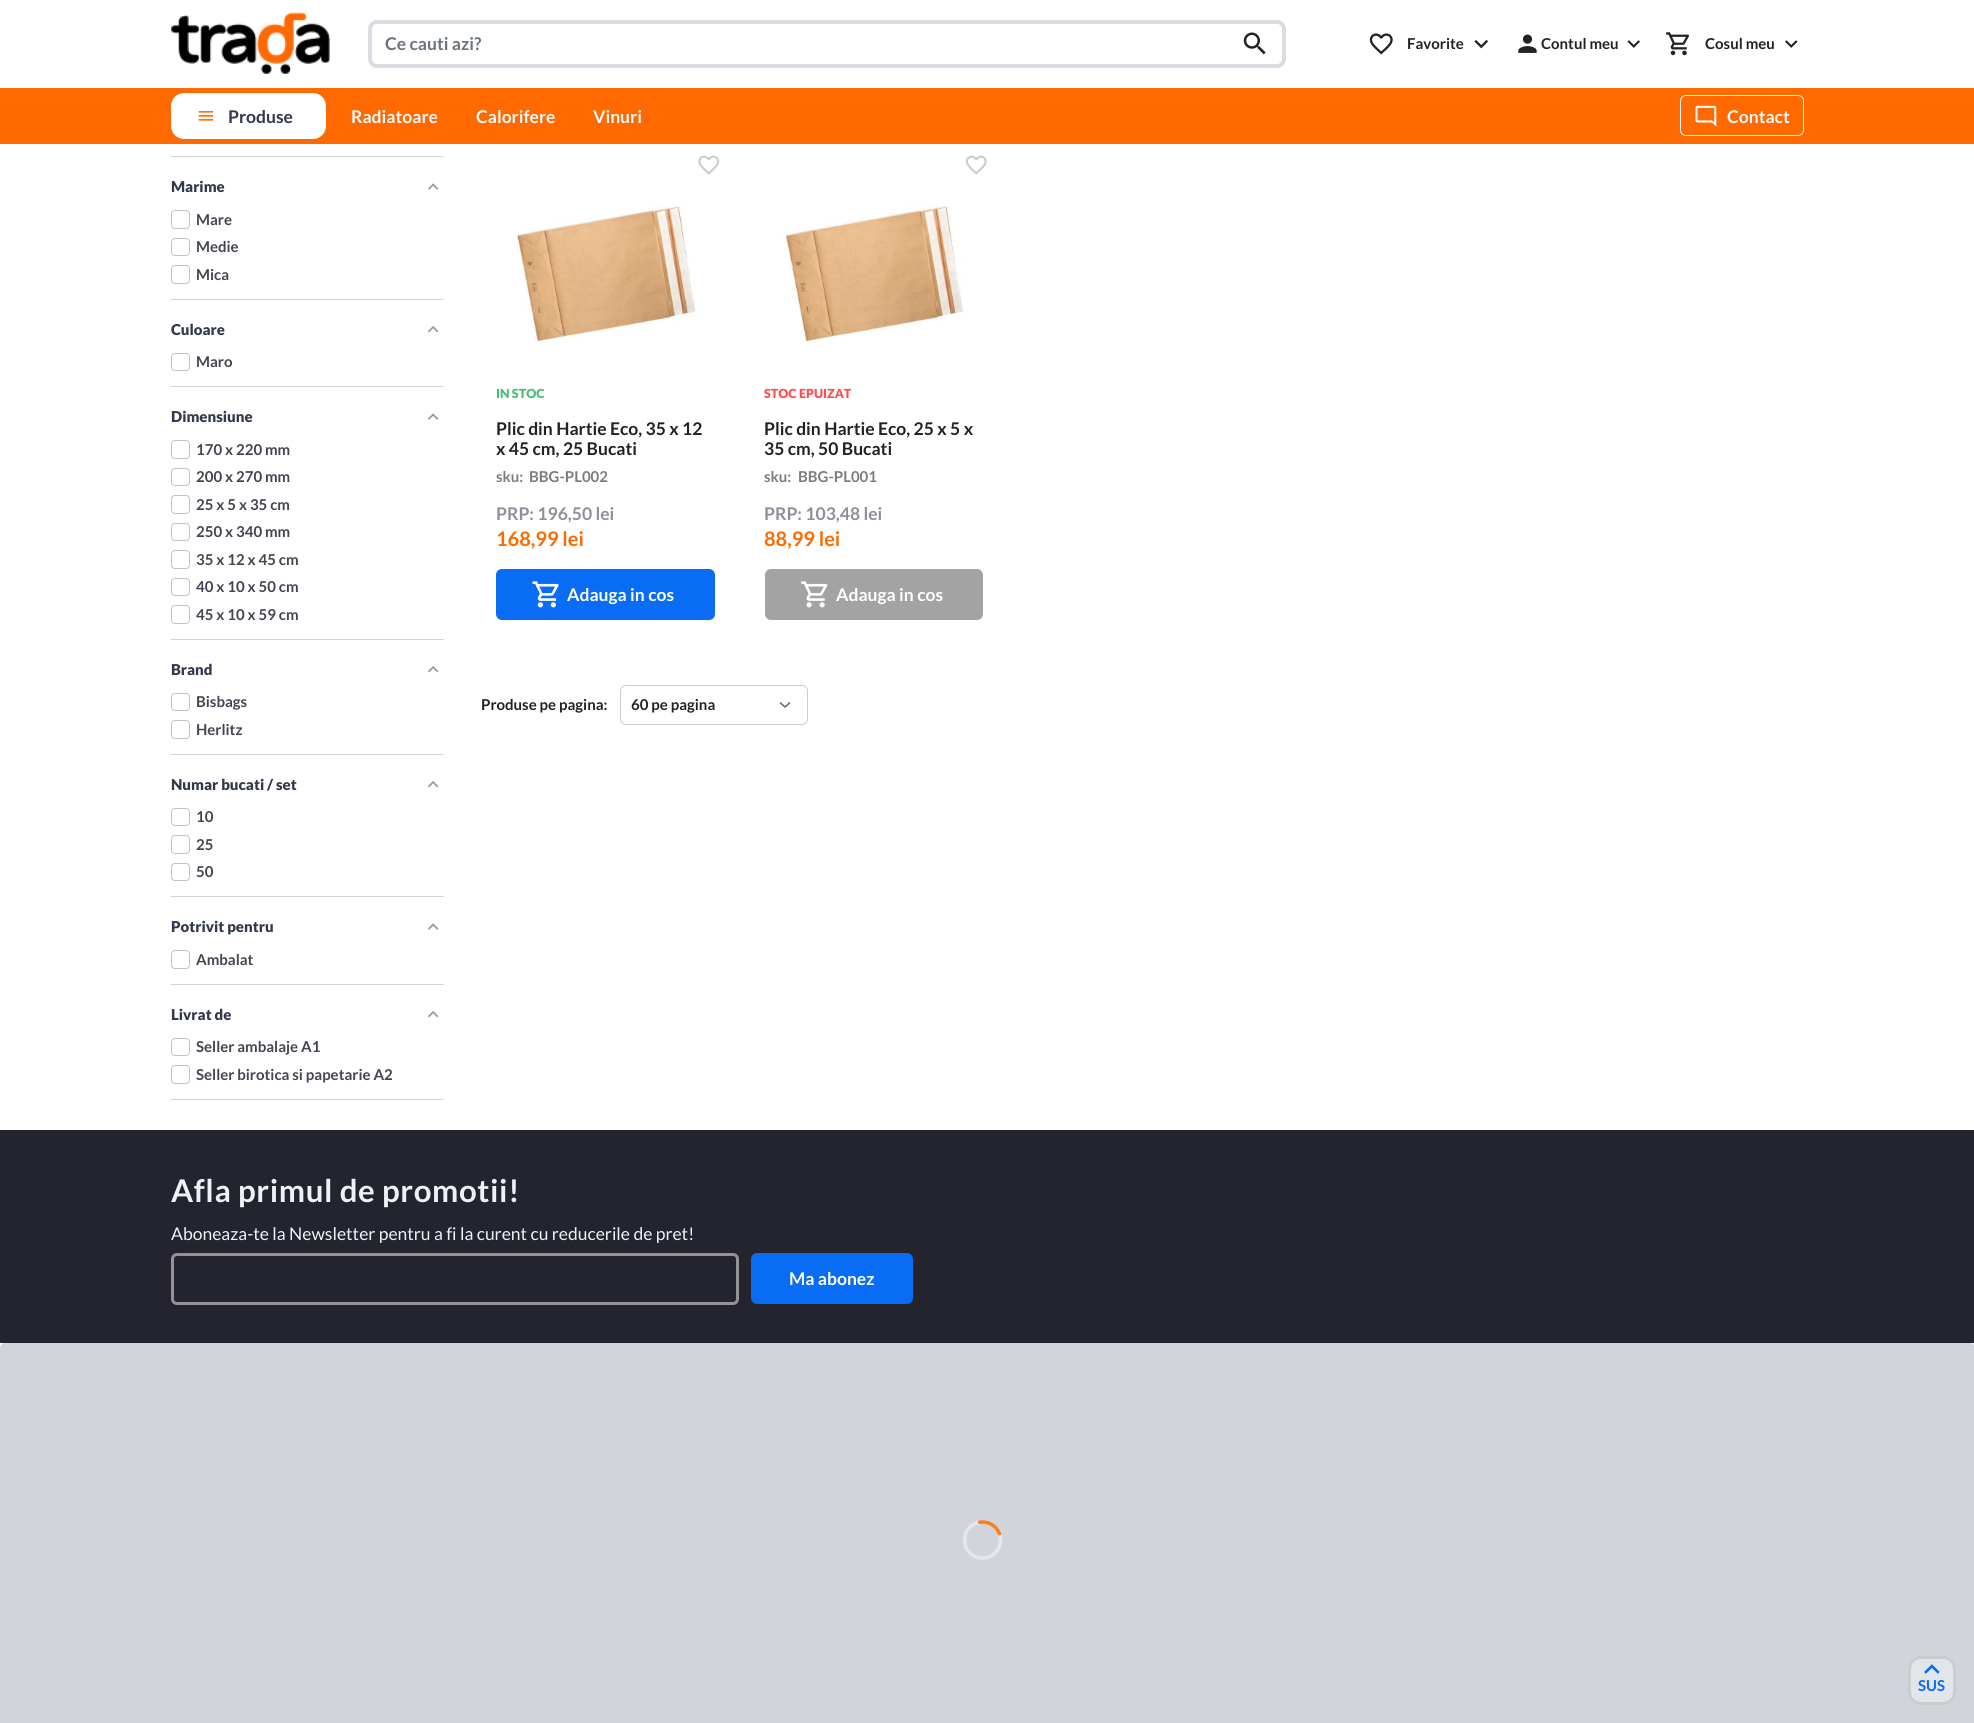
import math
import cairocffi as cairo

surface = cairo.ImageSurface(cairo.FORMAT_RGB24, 1974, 1723)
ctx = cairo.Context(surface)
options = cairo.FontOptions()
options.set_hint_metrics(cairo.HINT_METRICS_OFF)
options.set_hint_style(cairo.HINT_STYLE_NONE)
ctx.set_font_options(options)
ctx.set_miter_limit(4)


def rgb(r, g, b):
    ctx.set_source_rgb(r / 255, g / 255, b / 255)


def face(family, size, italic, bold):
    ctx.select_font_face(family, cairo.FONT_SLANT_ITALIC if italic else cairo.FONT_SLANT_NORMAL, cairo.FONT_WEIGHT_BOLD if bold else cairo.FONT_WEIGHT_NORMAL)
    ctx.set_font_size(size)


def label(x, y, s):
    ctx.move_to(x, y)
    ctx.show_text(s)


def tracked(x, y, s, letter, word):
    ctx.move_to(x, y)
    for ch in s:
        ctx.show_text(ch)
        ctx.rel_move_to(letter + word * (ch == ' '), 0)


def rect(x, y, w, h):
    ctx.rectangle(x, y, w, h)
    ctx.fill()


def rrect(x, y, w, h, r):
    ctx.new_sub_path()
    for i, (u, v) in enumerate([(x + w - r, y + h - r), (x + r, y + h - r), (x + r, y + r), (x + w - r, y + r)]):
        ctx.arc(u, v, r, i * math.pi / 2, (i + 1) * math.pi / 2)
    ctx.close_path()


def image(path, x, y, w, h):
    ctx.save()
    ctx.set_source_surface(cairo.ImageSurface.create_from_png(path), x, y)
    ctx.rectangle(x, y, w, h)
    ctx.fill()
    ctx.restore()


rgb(255, 255, 255)
ctx.paint()
image('image0.png', 171, 12, 159, 62)
rrect(370, 22, 914, 44, 7)
rgb(218, 220, 226)
ctx.set_line_width(4)
ctx.stroke()
face('Lato', 17.5, 0, 1)
rgb(107, 114, 128)
label(385, 50, 'Ce cauti azi?')
image('image1.png', 1243, 32, 23, 23)
image('image2.png', 1369, 33, 24, 22)
face('Lato', 15, 0, 1)
rgb(34, 34, 34)
label(1407, 49, 'Favorite')
image('image3.png', 1474, 39, 14, 10)
image('image4.png', 1518, 34, 19, 19)
label(1541, 49, 'Contul meu')
image('image5.png', 1627, 40, 13, 8)
image('image6.png', 1666, 32, 23, 24)
label(1705, 49, 'Cosul meu')
image('image7.png', 1785, 40, 13, 8)
rgb(255, 105, 0)
rect(0, 88, 1974, 56)
rgb(255, 255, 255)
rrect(171, 93, 155, 46, 13)
ctx.fill()
image('image8.png', 198, 111, 16, 10)
face('Lato', 17.5, 0, 1)
rgb(50, 57, 77)
label(228, 123, 'Produse')
rgb(246, 249, 251)
label(351, 123, 'Radiatoare')
label(476, 123, 'Calorifere')
label(593, 123, 'Vinuri')
rrect(1680.5, 95.5, 123, 40, 5.5)
ctx.set_line_width(1)
ctx.stroke()
image('image9.png', 1695, 105, 22, 22)
label(1727, 123, 'Contact')
rgb(212, 212, 212)
rect(171, 156, 273, 1)
rect(171, 299, 273, 1)
face('Lato Black', 15, 0, 0)
rgb(50, 57, 77)
label(171, 192, 'Marime')
image('image10.png', 428, 183, 11, 7)
rrect(171.5, 210.5, 18, 18, 3.5)
rgb(192, 195, 198)
ctx.stroke()
face('Lato', 15, 0, 1)
rgb(67, 69, 80)
label(196, 225, 'Mare')
rrect(171.5, 238.5, 18, 17, 3.5)
rgb(192, 195, 198)
ctx.stroke()
rgb(67, 69, 80)
label(196, 252, 'Medie')
rrect(171.5, 265.5, 18, 18, 3.5)
rgb(192, 195, 198)
ctx.stroke()
rgb(67, 69, 80)
label(196, 280, 'Mica')
rgb(212, 212, 212)
rect(171, 386, 273, 1)
face('Lato Black', 15, 0, 0)
rgb(50, 57, 77)
label(171, 335, 'Culoare')
image('image11.png', 428, 326, 11, 7)
rrect(171.5, 353.5, 18, 17, 3.5)
rgb(192, 195, 198)
ctx.stroke()
face('Lato', 15, 0, 1)
rgb(67, 69, 80)
label(196, 367, 'Maro')
rgb(212, 212, 212)
rect(171, 639, 273, 1)
face('Lato Black', 15, 0, 0)
rgb(50, 57, 77)
label(171, 422, 'Dimensiune')
image('image10.png', 428, 413, 11, 7)
rrect(171.5, 440.5, 18, 18, 3.5)
rgb(192, 195, 198)
ctx.stroke()
face('Lato', 15, 0, 1)
rgb(67, 69, 80)
label(196, 455, '170 x 220 mm')
rrect(171.5, 468.5, 18, 17, 3.5)
rgb(192, 195, 198)
ctx.stroke()
rgb(67, 69, 80)
label(196, 482, '200 x 270 mm')
rrect(171.5, 495.5, 18, 18, 3.5)
rgb(192, 195, 198)
ctx.stroke()
rgb(67, 69, 80)
label(196, 510, '25 x 5 x 35 cm')
rrect(171.5, 523.5, 18, 17, 3.5)
rgb(192, 195, 198)
ctx.stroke()
rgb(67, 69, 80)
label(196, 537, '250 x 340 mm')
rrect(171.5, 550.5, 18, 18, 3.5)
rgb(192, 195, 198)
ctx.stroke()
rgb(67, 69, 80)
label(196, 565, '35 x 12 x 45 cm')
rrect(171.5, 578.5, 18, 17, 3.5)
rgb(192, 195, 198)
ctx.stroke()
rgb(67, 69, 80)
label(196, 592, '40 x 10 x 50 cm')
rrect(171.5, 605.5, 18, 18, 3.5)
rgb(192, 195, 198)
ctx.stroke()
rgb(67, 69, 80)
label(196, 620, '45 x 10 x 59 cm')
rgb(212, 212, 212)
rect(171, 754, 273, 1)
face('Lato Black', 15, 0, 0)
rgb(50, 57, 77)
label(171, 675, 'Brand')
image('image11.png', 428, 666, 11, 7)
rrect(171.5, 693.5, 18, 17, 3.5)
rgb(192, 195, 198)
ctx.stroke()
face('Lato', 15, 0, 1)
rgb(67, 69, 80)
label(196, 707, 'Bisbags')
rrect(171.5, 720.5, 18, 18, 3.5)
rgb(192, 195, 198)
ctx.stroke()
rgb(67, 69, 80)
label(196, 735, 'Herlitz')
rgb(212, 212, 212)
rect(171, 896, 273, 1)
face('Lato Black', 15, 0, 0)
rgb(50, 57, 77)
label(171, 790, 'Numar bucati / set')
image('image11.png', 428, 781, 11, 7)
rrect(171.5, 808.5, 18, 17, 3.5)
rgb(192, 195, 198)
ctx.stroke()
face('Lato', 15, 0, 1)
rgb(67, 69, 80)
label(196, 822, '10')
rrect(171.5, 835.5, 18, 18, 3.5)
rgb(192, 195, 198)
ctx.stroke()
rgb(67, 69, 80)
label(196, 850, '25')
rrect(171.5, 863.5, 18, 17, 3.5)
rgb(192, 195, 198)
ctx.stroke()
rgb(67, 69, 80)
label(196, 877, '50')
rgb(212, 212, 212)
rect(171, 984, 273, 1)
face('Lato Black', 15, 0, 0)
rgb(50, 57, 77)
label(171, 932, 'Potrivit pentru')
image('image10.png', 428, 923, 11, 7)
rrect(171.5, 950.5, 18, 18, 3.5)
rgb(192, 195, 198)
ctx.stroke()
face('Lato', 15, 0, 1)
rgb(67, 69, 80)
label(196, 965, 'Ambalat')
rgb(212, 212, 212)
rect(171, 1099, 273, 1)
face('Lato Black', 15, 0, 0)
rgb(50, 57, 77)
label(171, 1020, 'Livrat de')
image('image11.png', 428, 1011, 11, 7)
rrect(171.5, 1038.5, 18, 17, 3.5)
rgb(192, 195, 198)
ctx.stroke()
face('Lato', 15, 0, 1)
rgb(67, 69, 80)
label(196, 1052, 'Seller ambalaje A1')
rrect(171.5, 1065.5, 18, 18, 3.5)
rgb(192, 195, 198)
ctx.stroke()
rgb(67, 69, 80)
label(196, 1080, 'Seller birotica si papetarie A2')
image('image12.png', 698, 155, 22, 20)
image('image13.png', 514, 205, 182, 140)
face('Lato Black', 12.5, 0, 0)
rgb(72, 187, 120)
label(496, 398, 'IN STOC')
face('Lato', 17.5, 0, 1)
rgb(34, 34, 34)
label(496, 435, 'Plic din Hartie Eco, 35 x 12')
label(496, 455, 'x 45 cm, 25 Bucati')
face('Lato', 15, 0, 1)
rgb(122, 124, 129)
label(496, 482, 'sku:')
label(529, 482, 'BBG-PL002')
face('Lato', 17.5, 0, 1)
rgb(143, 143, 154)
label(496, 520, 'PRP: 196,50 lei')
face('Lato', 20, 0, 1)
rgb(255, 105, 0)
label(496, 546, '168,99 lei')
rgb(8, 108, 244)
rrect(496, 569, 219, 51, 6)
ctx.fill()
image('image14.png', 532, 581, 27, 27)
face('Lato', 17.5, 0, 1)
rgb(255, 255, 255)
label(567, 601, 'Adauga in cos')
image('image15.png', 965, 155, 22, 20)
image('image16.png', 782, 205, 182, 140)
face('Lato Black', 12.5, 0, 0)
rgb(255, 76, 76)
label(764, 398, 'STOC EPUIZAT')
face('Lato', 17.5, 0, 1)
rgb(34, 34, 34)
label(764, 435, 'Plic din Hartie Eco, 25 x 5 x')
label(764, 455, '35 cm, 50 Bucati')
face('Lato', 15, 0, 1)
rgb(122, 124, 129)
label(764, 482, 'sku:')
label(798, 482, 'BBG-PL001')
face('Lato', 17.5, 0, 1)
rgb(143, 143, 154)
label(764, 520, 'PRP: 103,48 lei')
face('Lato', 20, 0, 1)
rgb(255, 105, 0)
label(764, 546, '88,99 lei')
rgb(163, 163, 163)
rrect(765, 569, 218, 51, 6)
ctx.fill()
image('image17.png', 801, 581, 27, 27)
face('Lato', 17.5, 0, 1)
rgb(255, 255, 255)
label(836, 601, 'Adauga in cos')
face('Lato', 15, 0, 1)
rgb(34, 34, 34)
label(481, 710, 'Produse pe pagina:')
ctx.new_path()
ctx.move_to(780.5, 703)
ctx.line_to(785, 707)
ctx.line_to(789.5, 703)
rgb(107, 114, 128)
ctx.set_line_width(1.7)
ctx.set_line_cap(cairo.LINE_CAP_ROUND)
ctx.set_line_join(cairo.LINE_JOIN_ROUND)
ctx.stroke()
rrect(620.5, 685.5, 187, 39, 5.5)
rgb(204, 204, 204)
ctx.set_line_width(1)
ctx.set_line_cap(cairo.LINE_CAP_BUTT)
ctx.set_line_join(cairo.LINE_JOIN_MITER)
ctx.stroke()
rgb(34, 34, 34)
label(631, 710, '60 pe pagina')
rgb(36, 36, 46)
rect(0, 1130, 1974, 213)
face('Lato', 31.25, 0, 1)
rgb(239, 241, 247)
tracked(171, 1202, 'Afla primul de promotii!', 0.6, 0)
face('Lato', 17.5, 0, 0)
label(171, 1240, 'Aboneaza-te la Newsletter pentru a fi la curent cu reducerile de pret!')
rrect(172.5, 1254.5, 565, 49, 4.5)
rgb(146, 146, 151)
ctx.set_line_width(3)
ctx.stroke()
rgb(8, 108, 244)
rrect(751, 1253, 162, 51, 6)
ctx.fill()
face('Lato', 17.5, 0, 1)
rgb(255, 255, 255)
label(789, 1285, 'Ma abonez')
rgb(209, 213, 219)
rrect(0, 1343, 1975, 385, 5)
ctx.fill()
image('image18.png', 963, 1520, 40, 40)
rgb(226, 229, 233)
rrect(1909.5, 1657.5, 45, 46, 11.5)
ctx.fill_preserve()
rgb(204, 204, 204)
ctx.stroke()
image('image19.png', 1924, 1664, 16, 10)
face('Lato', 15, 0, 1)
rgb(8, 108, 244)
label(1918, 1691, 'SUS')
surface.write_to_png('render.png')
